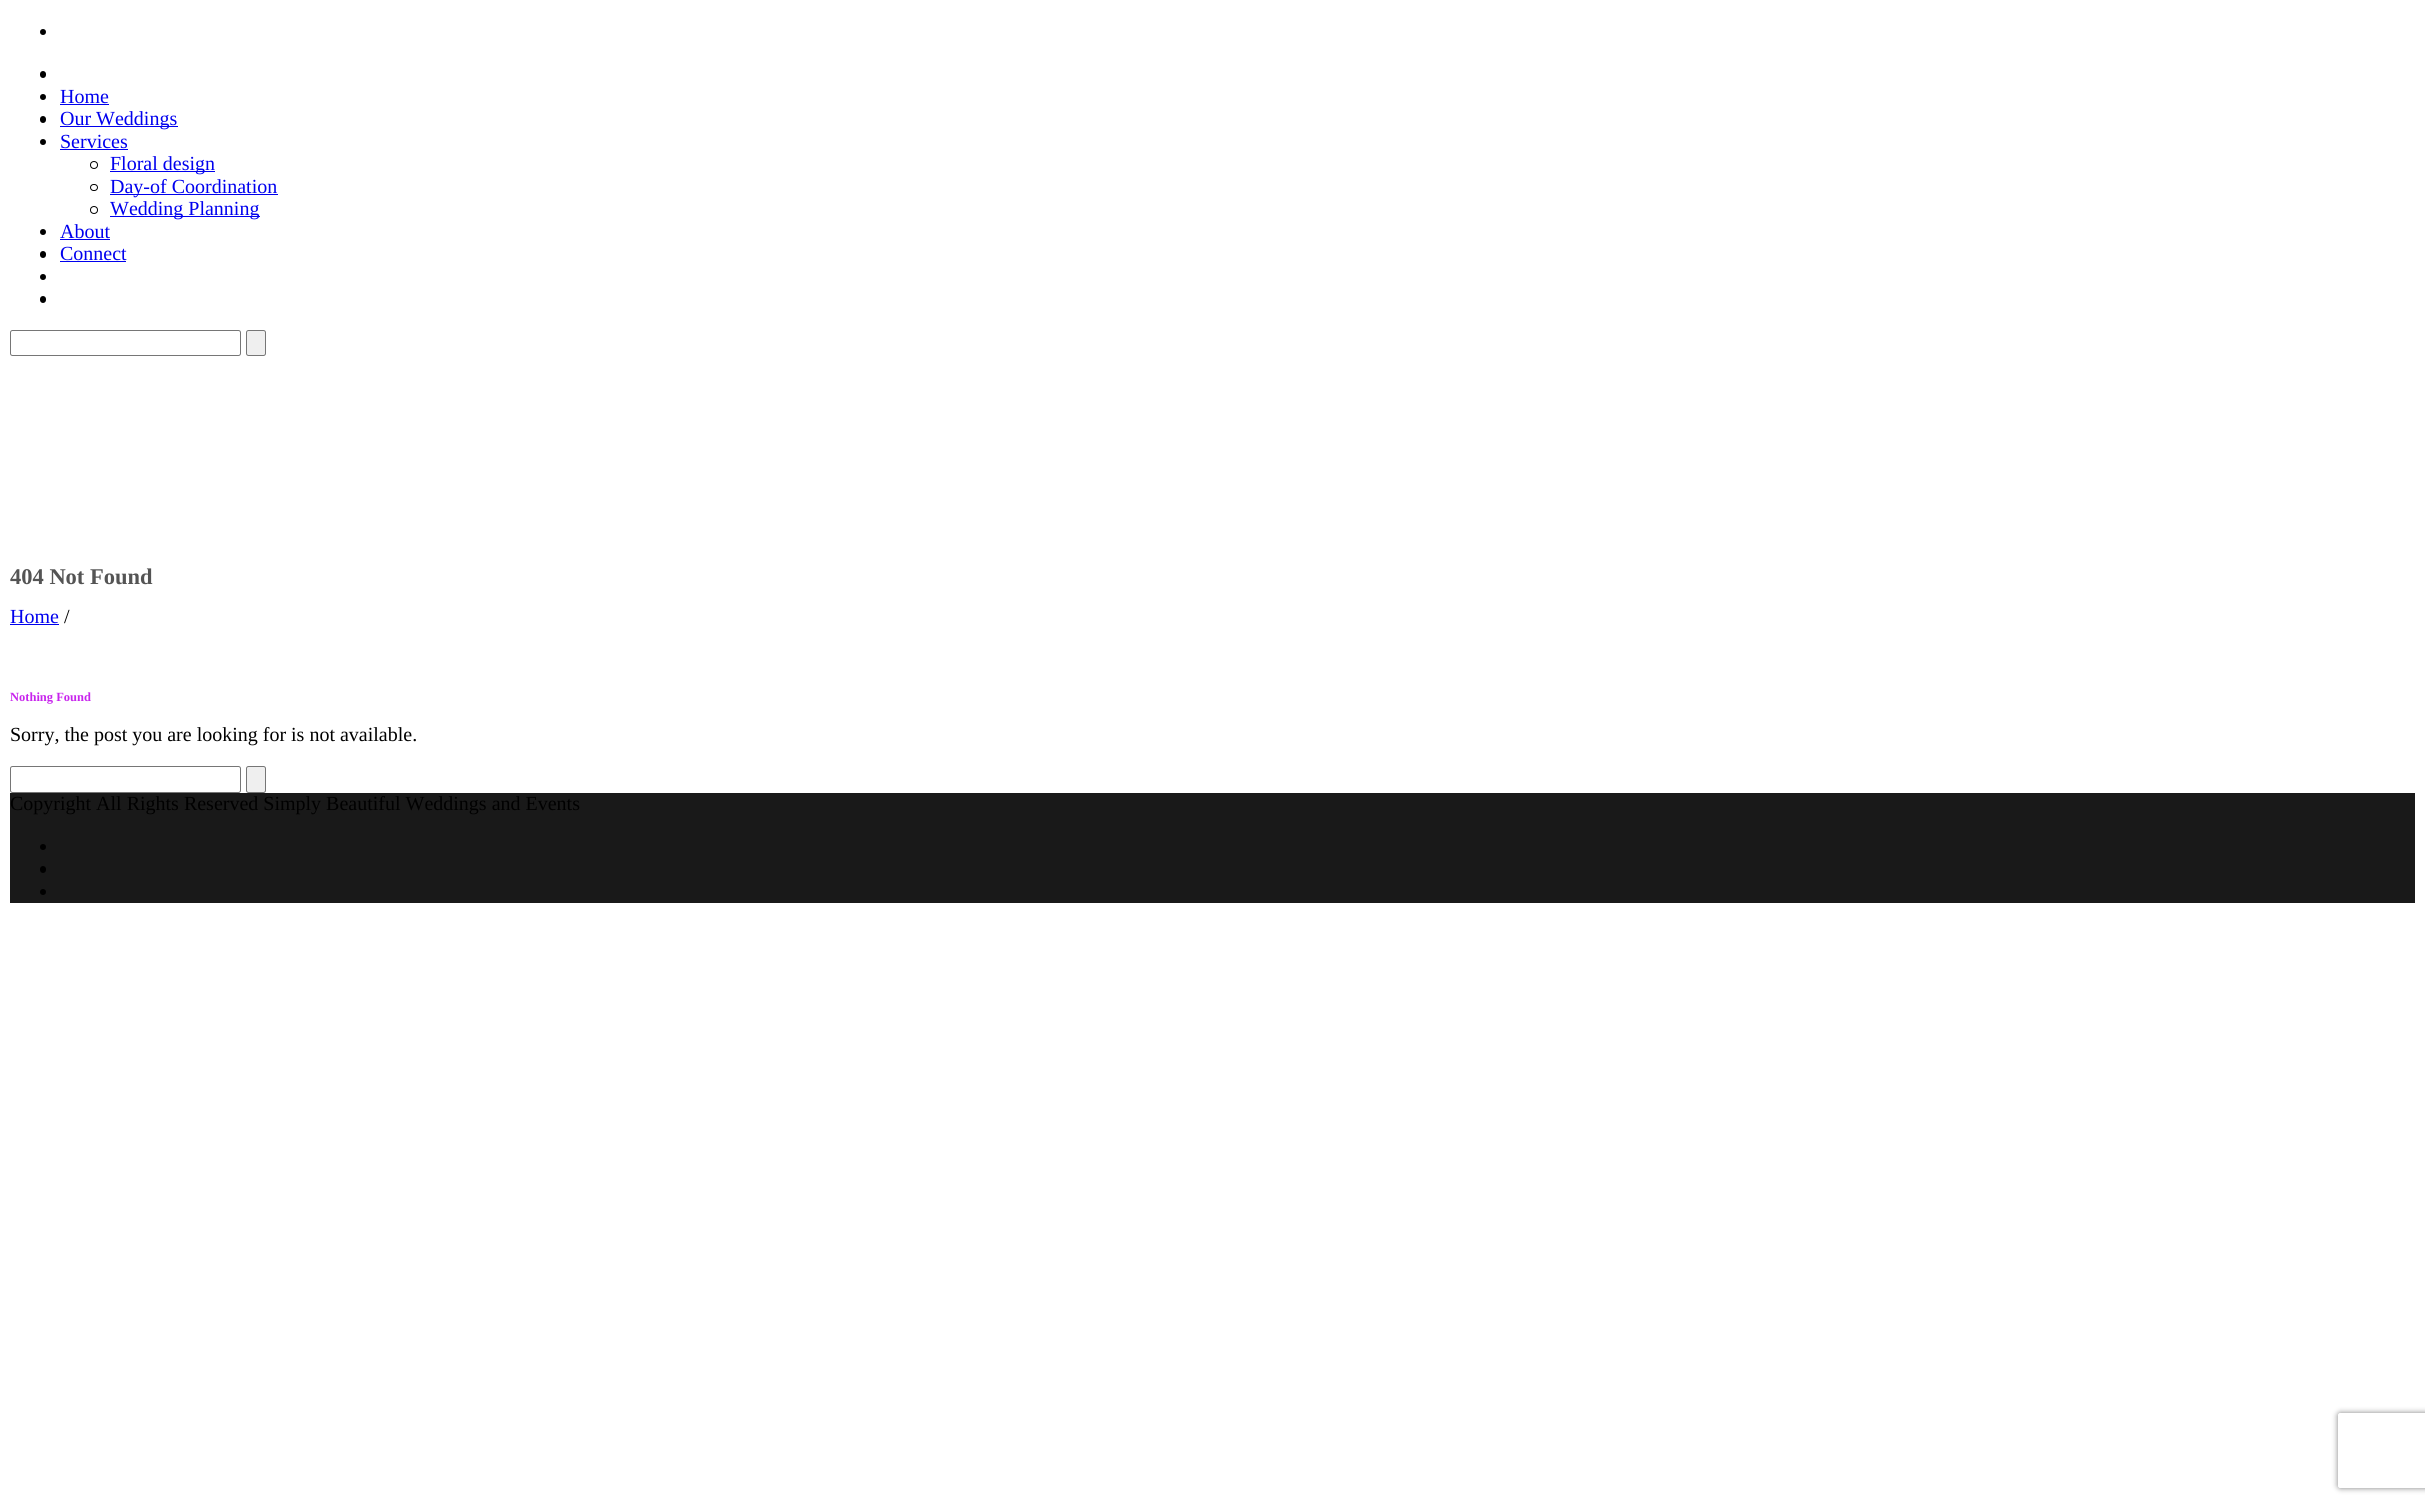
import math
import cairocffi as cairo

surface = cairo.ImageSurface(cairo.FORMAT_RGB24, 2425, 1505)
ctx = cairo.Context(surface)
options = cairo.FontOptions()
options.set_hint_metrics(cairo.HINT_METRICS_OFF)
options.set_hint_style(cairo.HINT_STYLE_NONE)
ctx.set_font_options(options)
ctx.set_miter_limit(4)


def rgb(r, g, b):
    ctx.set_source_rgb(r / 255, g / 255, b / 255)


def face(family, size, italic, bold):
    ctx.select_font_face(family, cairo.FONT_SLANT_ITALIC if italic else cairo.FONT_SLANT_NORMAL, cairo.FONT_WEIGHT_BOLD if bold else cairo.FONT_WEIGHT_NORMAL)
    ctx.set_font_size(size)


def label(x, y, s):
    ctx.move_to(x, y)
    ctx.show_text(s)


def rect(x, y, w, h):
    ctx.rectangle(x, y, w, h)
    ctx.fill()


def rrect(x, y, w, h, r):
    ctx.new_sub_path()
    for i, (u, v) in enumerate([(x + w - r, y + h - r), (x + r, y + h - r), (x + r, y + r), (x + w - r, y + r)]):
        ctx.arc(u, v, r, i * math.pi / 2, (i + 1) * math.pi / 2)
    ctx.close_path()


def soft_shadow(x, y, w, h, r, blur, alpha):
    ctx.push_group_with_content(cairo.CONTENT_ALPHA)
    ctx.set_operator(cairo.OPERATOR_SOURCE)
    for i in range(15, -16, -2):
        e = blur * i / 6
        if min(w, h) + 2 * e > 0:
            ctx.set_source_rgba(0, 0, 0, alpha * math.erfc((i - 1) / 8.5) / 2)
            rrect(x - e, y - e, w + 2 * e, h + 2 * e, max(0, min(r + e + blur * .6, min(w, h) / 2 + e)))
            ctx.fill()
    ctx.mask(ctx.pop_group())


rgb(255, 255, 255)
ctx.paint()
rgb(0, 0, 0)
ctx.arc(43, 32, 3, 0, 2 * math.pi)
ctx.fill()
rrect(40, 71, 6, 7, 3)
ctx.fill()
ctx.arc(43, 97, 3, 0, 2 * math.pi)
ctx.fill()
face('Liberation Serif', 20, 0, 0)
rgb(0, 0, 238)
label(60, 103, 'Home')
rect(60, 104, 49, 1)
rgb(0, 0, 0)
rrect(40, 116, 6, 7, 3)
ctx.fill()
rgb(0, 0, 238)
rect(60, 126, 118, 1)
label(60, 125, 'Our Weddings')
rgb(0, 0, 0)
ctx.new_path()
ctx.arc(43, 142, 3, 0, 2 * math.pi)
ctx.fill()
rgb(0, 0, 238)
label(60, 148, 'Services')
rect(60, 149, 68, 1)
ctx.new_path()
ctx.arc(94, 165, 3.5, 0, 2 * math.pi)
rgb(0, 0, 0)
ctx.set_line_width(1)
ctx.stroke()
rgb(0, 0, 238)
rect(110, 171, 105, 1)
label(110, 170, 'Floral design')
rrect(90.5, 184.5, 7, 6, 3)
rgb(0, 0, 0)
ctx.stroke()
rgb(0, 0, 238)
rect(110, 194, 168, 1)
label(110, 193, 'Day-of Coordination')
ctx.new_path()
ctx.arc(94, 210, 3.5, 0, 2 * math.pi)
rgb(0, 0, 0)
ctx.stroke()
rgb(0, 0, 238)
rect(110, 216, 150, 1)
label(110, 215, 'Wedding Planning')
rgb(0, 0, 0)
ctx.new_path()
ctx.arc(43, 232, 3, 0, 2 * math.pi)
ctx.fill()
rgb(0, 0, 238)
label(60, 238, 'About')
rect(60, 239, 50, 1)
rgb(0, 0, 0)
rrect(40, 251, 6, 7, 3)
ctx.fill()
rgb(0, 0, 238)
label(60, 260, 'Connect')
rect(60, 261, 66, 1)
rgb(0, 0, 0)
ctx.new_path()
ctx.arc(43, 277, 3, 0, 2 * math.pi)
ctx.fill()
rrect(40, 296, 6, 7, 3)
ctx.fill()
rrect(10.5, 330.5, 230, 25, 2)
rgb(118, 118, 118)
ctx.stroke()
rgb(239, 239, 239)
rrect(246.5, 330.5, 19, 25, 2)
ctx.fill_preserve()
rgb(118, 118, 118)
ctx.stroke()
face('Liberation Serif', 22.5, 0, 1)
rgb(84, 84, 84)
label(10, 584, '404 Not Found')
face('Liberation Serif', 20, 0, 0)
rgb(0, 0, 238)
label(10, 623, 'Home')
rect(10, 624, 49, 1)
rgb(0, 0, 0)
label(64, 623, '/')
face('Liberation Serif', 12.5, 0, 1)
rgb(200, 37, 237)
label(10, 701, 'Nothing Found')
face('Liberation Serif', 20, 0, 0)
rgb(0, 0, 0)
label(10, 741, 'Sorry, the post you are looking for is not available.')
rrect(10.5, 766.5, 230, 26, 2)
rgb(118, 118, 118)
ctx.stroke()
rgb(239, 239, 239)
rrect(246.5, 766.5, 19, 26, 2)
ctx.fill_preserve()
rgb(118, 118, 118)
ctx.stroke()
rgb(25, 25, 25)
rect(10, 793, 2405, 110)
rgb(0, 0, 0)
label(10, 810, 'Copyright All Rights Reserved Simply Beautiful Weddings and Events')
ctx.new_path()
ctx.arc(43, 847, 3, 0, 2 * math.pi)
ctx.fill()
rrect(40, 866, 6, 7, 3)
ctx.fill()
ctx.arc(43, 892, 3, 0, 2 * math.pi)
ctx.fill()
ctx.save()
ctx.set_fill_rule(cairo.FILL_RULE_EVEN_ODD)
ctx.new_path()
ctx.move_to(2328, 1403)
ctx.line_to(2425, 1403)
ctx.line_to(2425, 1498)
ctx.line_to(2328, 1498)
ctx.close_path()
ctx.move_to(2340.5, 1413)
ctx.line_to(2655.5, 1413)
ctx.curve_to(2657, 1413, 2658, 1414, 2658, 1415.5)
ctx.line_to(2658, 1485.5)
ctx.curve_to(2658, 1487, 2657, 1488, 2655.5, 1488)
ctx.line_to(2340.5, 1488)
ctx.curve_to(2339, 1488, 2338, 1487, 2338, 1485.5)
ctx.line_to(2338, 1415.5)
ctx.curve_to(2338, 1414, 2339, 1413, 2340.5, 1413)
ctx.close_path()
ctx.clip()
rgb(128, 128, 128)
soft_shadow(2338, 1413, 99, 75, 2.5, 3, 1)
ctx.restore()
surface.write_to_png('render.png')
